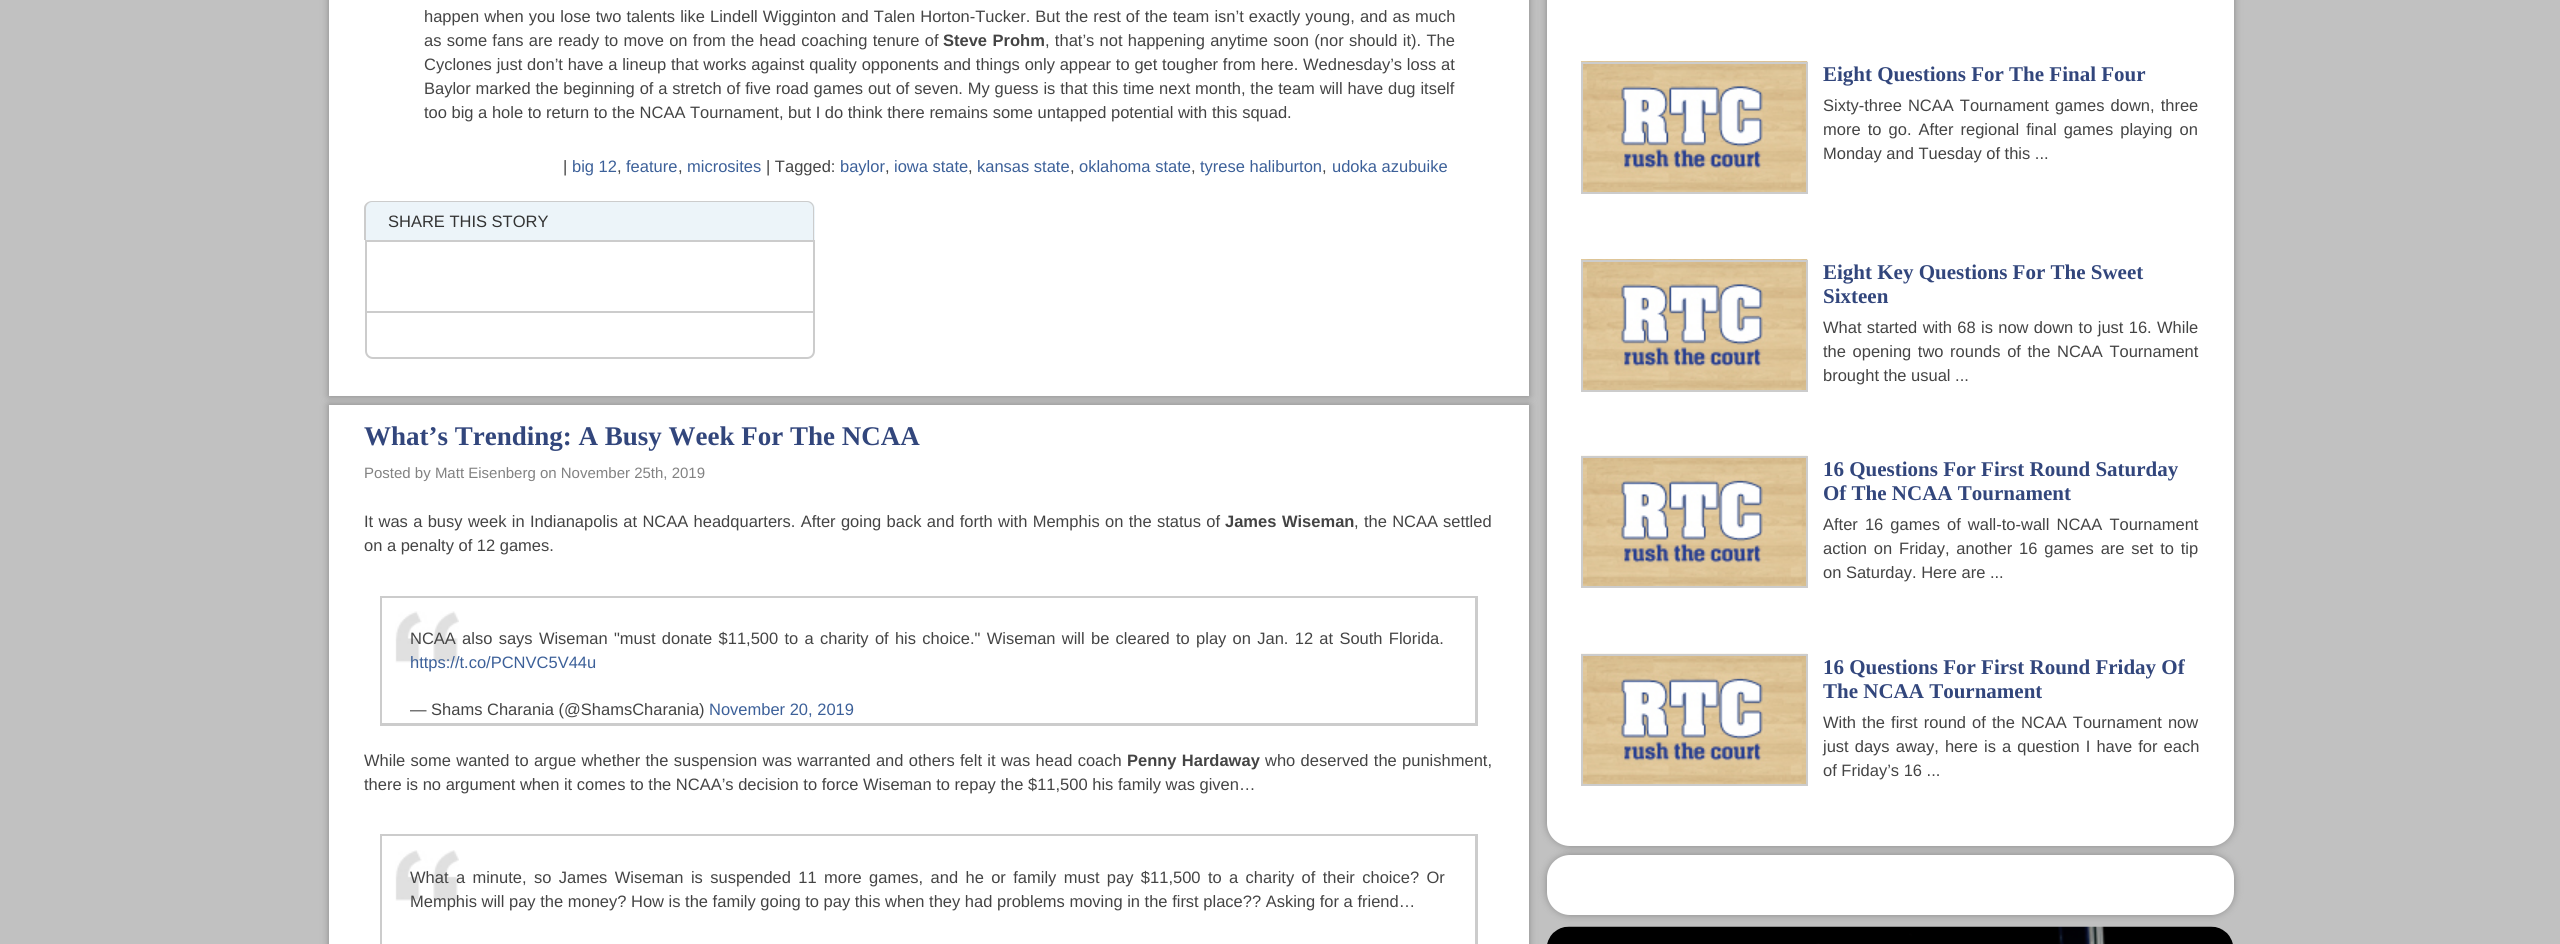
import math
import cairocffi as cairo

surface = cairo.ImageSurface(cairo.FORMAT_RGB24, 2560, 944)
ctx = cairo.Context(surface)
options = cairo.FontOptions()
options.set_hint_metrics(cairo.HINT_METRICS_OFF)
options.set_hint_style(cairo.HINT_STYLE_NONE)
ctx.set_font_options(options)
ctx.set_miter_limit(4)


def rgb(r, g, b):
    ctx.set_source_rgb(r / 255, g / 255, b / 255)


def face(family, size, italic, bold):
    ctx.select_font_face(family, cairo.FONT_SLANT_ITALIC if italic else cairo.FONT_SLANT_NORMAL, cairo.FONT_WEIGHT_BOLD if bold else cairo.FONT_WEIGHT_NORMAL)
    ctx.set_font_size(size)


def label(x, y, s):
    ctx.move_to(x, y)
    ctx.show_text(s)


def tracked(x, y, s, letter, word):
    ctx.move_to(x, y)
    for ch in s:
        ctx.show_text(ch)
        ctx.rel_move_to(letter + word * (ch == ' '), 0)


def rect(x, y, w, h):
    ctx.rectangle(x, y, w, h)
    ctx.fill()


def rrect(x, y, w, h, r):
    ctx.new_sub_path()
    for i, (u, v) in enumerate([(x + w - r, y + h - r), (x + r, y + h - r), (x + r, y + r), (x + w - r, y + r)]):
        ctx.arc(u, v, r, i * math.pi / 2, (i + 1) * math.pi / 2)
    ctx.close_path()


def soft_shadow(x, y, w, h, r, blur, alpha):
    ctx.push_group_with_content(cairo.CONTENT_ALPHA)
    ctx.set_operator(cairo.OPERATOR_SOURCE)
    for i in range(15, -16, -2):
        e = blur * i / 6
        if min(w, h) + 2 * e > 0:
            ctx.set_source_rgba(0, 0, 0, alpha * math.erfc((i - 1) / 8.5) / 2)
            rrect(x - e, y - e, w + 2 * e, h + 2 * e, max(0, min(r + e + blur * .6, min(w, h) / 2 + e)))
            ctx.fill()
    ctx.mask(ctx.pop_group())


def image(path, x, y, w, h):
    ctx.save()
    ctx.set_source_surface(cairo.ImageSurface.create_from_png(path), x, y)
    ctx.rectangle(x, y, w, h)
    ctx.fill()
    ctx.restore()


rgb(193, 193, 193)
ctx.paint()
rgb(136, 136, 136)
soft_shadow(329, -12, 1200, 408, 0, 4, 1)
rgb(255, 255, 255)
rect(329, 0, 1200, 396)
face('Liberation Sans', 16.5, 0, 0)
rgb(68, 68, 68)
tracked(424, 22, 'happen when you lose two talents like Lindell Wigginton and Talen Horton-Tucker. But the rest of the team isn’t exactly young, and as much', 0, 0.5)
tracked(424, 46, 'as some fans are ready to move on from the head coaching tenure of', 0, 0.7)
face('Liberation Sans', 16.5, 0, 1)
tracked(943, 46, 'Steve Prohm', 0, 1)
face('Liberation Sans', 16.5, 0, 0)
tracked(1045, 46, ', that’s not happening anytime soon (nor should it). The', 0, 0.7)
tracked(424, 70, 'Cyclones just don’t have a lineup that works against quality opponents and things only appear to get tougher from here. Wednesday’s loss at', 0, 0.2)
tracked(424, 94, 'Baylor marked the beginning of a stretch of five road games out of seven. My guess is that this time next month, the team will have dug itself', 0, 0.25)
label(424, 118, 'too big a hole to return to the NCAA Tournament, but I do think there remains some untapped potential with this squad.')
label(563, 172, '|')
rgb(60, 96, 153)
label(572, 172, 'big 12')
rgb(68, 68, 68)
label(617, 172, ',')
rgb(60, 96, 153)
label(626, 172, 'feature')
rgb(68, 68, 68)
label(678, 172, ',')
rgb(60, 96, 153)
label(687, 172, 'microsites')
rgb(68, 68, 68)
label(766, 172, '| Tagged:')
rgb(60, 96, 153)
label(840, 172, 'baylor')
rgb(68, 68, 68)
label(885, 172, ',')
rgb(60, 96, 153)
label(894, 172, 'iowa state')
rgb(68, 68, 68)
label(968, 172, ',')
rgb(60, 96, 153)
label(977, 172, 'kansas state')
rgb(68, 68, 68)
label(1070, 172, ',')
rgb(60, 96, 153)
label(1079, 172, 'oklahoma state')
rgb(68, 68, 68)
label(1191, 172, ',')
rgb(60, 96, 153)
label(1200, 172, 'tyrese haliburton')
rgb(68, 68, 68)
label(1322, 172, ',')
rgb(60, 96, 153)
label(1332, 172, 'udoka azubuike')
rgb(236, 244, 249)
ctx.new_path()
ctx.move_to(373, 201)
ctx.line_to(807, 201)
ctx.curve_to(811.5, 201, 815, 204.5, 815, 209)
ctx.line_to(815, 240)
ctx.line_to(365, 240)
ctx.line_to(365, 209)
ctx.curve_to(365, 204.5, 368.5, 201, 373, 201)
ctx.close_path()
ctx.fill()
rgb(204, 204, 204)
ctx.set_fill_rule(cairo.FILL_RULE_EVEN_ODD)
ctx.new_path()
ctx.move_to(372, 201)
ctx.line_to(807, 201)
ctx.curve_to(811, 201, 814, 204, 814, 208)
ctx.line_to(814, 240)
ctx.line_to(364, 240)
ctx.line_to(364, 208)
ctx.curve_to(364, 204, 368, 201, 372, 201)
ctx.close_path()
ctx.move_to(372, 202)
ctx.line_to(807, 202)
ctx.curve_to(810, 202, 813, 205, 813, 208)
ctx.line_to(813, 240)
ctx.line_to(366, 240)
ctx.line_to(366, 208)
ctx.curve_to(366, 205, 369, 202, 372, 202)
ctx.close_path()
ctx.fill()
rgb(51, 51, 51)
label(388, 227, 'SHARE THIS STORY')
rgb(204, 204, 204)
rect(365, 240, 450, 2)
rect(813, 240, 2, 71)
rect(365, 240, 2, 71)
ctx.new_path()
ctx.move_to(366, 312)
ctx.line_to(814, 312)
ctx.line_to(814, 351)
ctx.curve_to(814, 355, 811, 358, 807, 358)
ctx.line_to(373, 358)
ctx.curve_to(369, 358, 366, 355, 366, 351)
ctx.close_path()
ctx.stroke()
rgb(136, 136, 136)
soft_shadow(329, 405, 1200, 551, 0, 4, 1)
rgb(255, 255, 255)
rect(329, 405, 1200, 539)
face('Liberation Serif', 27, 0, 1)
rgb(50, 70, 124)
label(364, 445, 'What’s Trending: A Busy Week For The NCAA')
face('Liberation Sans', 15, 0, 0)
rgb(130, 130, 130)
label(364, 478, 'Posted by Matt Eisenberg on November 25th, 2019')
face('Liberation Sans', 16.5, 0, 0)
rgb(68, 68, 68)
tracked(364, 527, 'It was a busy week in Indianapolis at NCAA headquarters. After going back and forth with Memphis on the status of', 0, 0.75)
face('Liberation Sans', 16.5, 0, 1)
tracked(1225, 527, 'James Wiseman', 0, 1)
face('Liberation Sans', 16.5, 0, 0)
tracked(1354, 527, ', the NCAA', 0, 0.75)
label(1443, 527, 'settled')
label(364, 551, 'on a penalty of 12 games.')
image('image0.png', 395, 611, 64, 52)
rgb(204, 204, 204)
rect(380, 596, 1098, 2)
rect(1475, 596, 3, 130)
rect(380, 723, 1098, 3)
rect(380, 596, 2, 130)
rgb(68, 68, 68)
tracked(410, 644, 'NCAA also says Wiseman "must donate $11,500 to a charity of his choice." Wiseman will be cleared to play on Jan. 12 at South Florida.', 0, 1.7)
rgb(60, 96, 153)
label(410, 668, 'https://t.co/PCNVC5V44u')
rgb(68, 68, 68)
label(410, 715, '— Shams Charania (@ShamsCharania)')
rgb(60, 96, 153)
label(709, 715, 'November 20, 2019')
rgb(68, 68, 68)
tracked(364, 766, 'While some wanted to argue whether the suspension was warranted and others felt it was head coach', 0, 0.75)
face('Liberation Sans', 16.5, 0, 1)
tracked(1127, 766, 'Penny Hardaway', 0, 0.75)
face('Liberation Sans', 16.5, 0, 0)
tracked(1265, 766, 'who deserved the punishment,', 0, 0.75)
label(364, 790, 'there is no argument when it comes to the NCAA’s decision to force Wiseman to repay the $11,500 his family was given…')
image('image1.png', 395, 850, 64, 51)
rgb(204, 204, 204)
rect(380, 834, 1098, 2)
rect(1475, 834, 3, 110)
rect(380, 834, 2, 110)
rgb(68, 68, 68)
tracked(410, 883, 'What a minute, so James Wiseman is suspended 11 more games, and he or family must pay $11,500 to a charity of their choice? Or', 0, 2.8)
label(410, 907, 'Memphis will pay the money? How is the family going to pay this when they had problems moving in the first place?? Asking for a friend…')
rgb(136, 136, 136)
soft_shadow(1547, -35, 687, 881, 23, 4, 1)
rgb(255, 255, 255)
rrect(1547, -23, 687, 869, 23)
ctx.fill()
image('image2.png', 1581, 61, 227, 131)
ctx.rectangle(1582, 63, 225, 130)
rgb(204, 204, 204)
ctx.stroke()
face('Liberation Serif', 21, 0, 1)
rgb(50, 70, 124)
label(1823, 81, 'Eight Questions For The Final Four')
face('Liberation Sans', 16.5, 0, 0)
rgb(68, 68, 68)
tracked(1823, 111, 'Sixty-three NCAA Tournament games down, three', 0, 1.5)
tracked(1823, 135, 'more to go. After regional final games playing on', 0, 2.5)
label(1823, 159, 'Monday and Tuesday of this ...')
image('image2.png', 1581, 259, 227, 131)
ctx.rectangle(1582, 261, 225, 130)
rgb(204, 204, 204)
ctx.stroke()
face('Liberation Serif', 21, 0, 1)
rgb(50, 70, 124)
label(1823, 279, 'Eight Key Questions For The Sweet')
label(1823, 303, 'Sixteen')
face('Liberation Sans', 16.5, 0, 0)
rgb(68, 68, 68)
tracked(1823, 333, 'What started with 68 is now down to just 16. While', 0, 0.75)
tracked(1823, 357, 'the opening two rounds of the NCAA Tournament', 0, 2)
label(1823, 381, 'brought the usual ...')
image('image3.png', 1581, 455, 227, 131)
ctx.rectangle(1582, 457, 225, 130)
rgb(204, 204, 204)
ctx.stroke()
face('Liberation Serif', 21, 0, 1)
rgb(50, 70, 124)
label(1823, 476, '16 Questions For First Round Saturday')
label(1823, 500, 'Of The NCAA Tournament')
face('Liberation Sans', 16.5, 0, 0)
rgb(68, 68, 68)
tracked(1823, 530, 'After 16 games of wall-to-wall NCAA Tournament', 0, 2.5)
tracked(1823, 554, 'action on Friday, another 16 games are set to tip', 0, 2.25)
label(1823, 578, 'on Saturday. Here are ...')
image('image3.png', 1581, 653, 227, 131)
ctx.rectangle(1582, 655, 225, 130)
rgb(204, 204, 204)
ctx.stroke()
face('Liberation Serif', 21, 0, 1)
rgb(50, 70, 124)
label(1823, 674, '16 Questions For First Round Friday Of')
label(1823, 698, 'The NCAA Tournament')
face('Liberation Sans', 16.5, 0, 0)
rgb(68, 68, 68)
tracked(1823, 728, 'With the first round of the NCAA Tournament now', 0, 1.5)
tracked(1823, 752, 'just days away, here is a question I have for each', 0, 1.5)
label(1823, 776, 'of Friday’s 16 ...')
rgb(136, 136, 136)
soft_shadow(1547, 855, 687, 60, 23, 4, 1)
rgb(255, 255, 255)
rrect(1547, 855, 687, 60, 23)
ctx.fill()
image('image4.png', 1547, 926, 686, 18)
surface.write_to_png('render.png')
